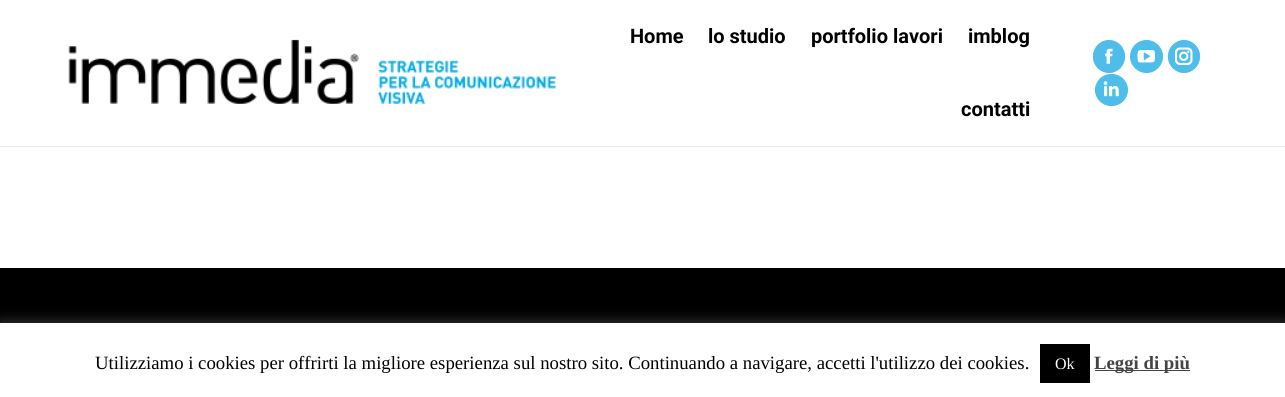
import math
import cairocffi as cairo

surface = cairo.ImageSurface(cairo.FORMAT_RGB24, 1285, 397)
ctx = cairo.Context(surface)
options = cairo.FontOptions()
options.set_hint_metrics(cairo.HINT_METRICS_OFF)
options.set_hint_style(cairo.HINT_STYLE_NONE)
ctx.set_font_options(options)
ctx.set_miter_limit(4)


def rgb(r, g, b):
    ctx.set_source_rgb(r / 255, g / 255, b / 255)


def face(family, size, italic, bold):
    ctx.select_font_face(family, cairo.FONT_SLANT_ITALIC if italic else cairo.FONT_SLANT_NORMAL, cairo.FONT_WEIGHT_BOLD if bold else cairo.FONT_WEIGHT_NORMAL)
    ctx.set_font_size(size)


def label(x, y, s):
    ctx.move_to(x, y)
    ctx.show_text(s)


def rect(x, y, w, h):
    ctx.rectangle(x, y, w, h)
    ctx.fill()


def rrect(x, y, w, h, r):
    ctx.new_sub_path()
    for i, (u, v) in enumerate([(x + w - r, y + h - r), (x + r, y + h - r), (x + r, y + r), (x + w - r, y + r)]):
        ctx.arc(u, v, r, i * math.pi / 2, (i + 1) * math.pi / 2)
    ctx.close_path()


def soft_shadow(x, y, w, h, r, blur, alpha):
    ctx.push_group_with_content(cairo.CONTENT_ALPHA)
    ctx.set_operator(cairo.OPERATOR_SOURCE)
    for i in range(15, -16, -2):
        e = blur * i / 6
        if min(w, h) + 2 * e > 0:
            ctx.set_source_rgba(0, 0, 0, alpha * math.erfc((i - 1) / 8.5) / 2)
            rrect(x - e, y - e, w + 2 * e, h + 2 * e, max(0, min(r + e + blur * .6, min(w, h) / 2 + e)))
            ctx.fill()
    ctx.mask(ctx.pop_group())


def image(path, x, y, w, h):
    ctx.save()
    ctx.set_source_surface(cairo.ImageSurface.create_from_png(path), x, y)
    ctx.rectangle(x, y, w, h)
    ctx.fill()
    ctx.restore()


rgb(255, 255, 255)
ctx.paint()
rgb(230, 231, 233)
rect(0, 146, 1285, 1)
image('image0.png', 68, 39, 489, 66)
face('Roboto', 20, 0, 1)
rgb(0, 0, 0)
label(630, 43, 'Home')
label(708, 43, 'lo studio')
label(811, 43, 'portfolio lavori')
label(968, 43, 'imblog')
label(961, 116, 'contatti')
rgb(78, 189, 234)
rrect(1093.5, 40.5, 31, 32, 15.5)
ctx.fill_preserve()
ctx.set_line_width(1)
ctx.stroke()
image('image1.png', 1105, 48, 8, 16)
ctx.arc(1146.5, 56.5, 16, 0, 2 * math.pi)
ctx.fill_preserve()
ctx.stroke()
image('image2.png', 1137, 50, 18, 13)
rrect(1168.5, 40.5, 31, 32, 15.5)
ctx.fill_preserve()
ctx.stroke()
image('image3.png', 1175, 47, 18, 18)
rrect(1095.5, 74.5, 32, 31, 15.5)
ctx.fill_preserve()
ctx.stroke()
image('image4.png', 1103, 81, 16, 16)
rgb(0, 0, 0)
rect(0, 268, 1285, 55)
rgb(172, 171, 171)
soft_shadow(0, 321, 1285, 75, 0, 6, 0.3)
rgb(255, 255, 255)
rect(0, 323, 1285, 74)
face('Liberation Serif', 18.75, 0, 0)
rgb(0, 0, 0)
label(95, 369, 'Utilizziamo i cookies per offrirti la migliore esperienza sul nostro sito. Continuando a navigare, accetti l\'utilizzo dei cookies.')
rect(1040, 344, 50, 39)
face('Liberation Serif', 16, 0, 0)
rgb(255, 255, 255)
label(1055, 369, 'Ok')
rgb(68, 68, 68)
rect(1095, 370, 95, 1)
face('Liberation Serif', 18.75, 0, 1)
label(1094, 369, 'Leggi di più')
surface.write_to_png('render.png')
